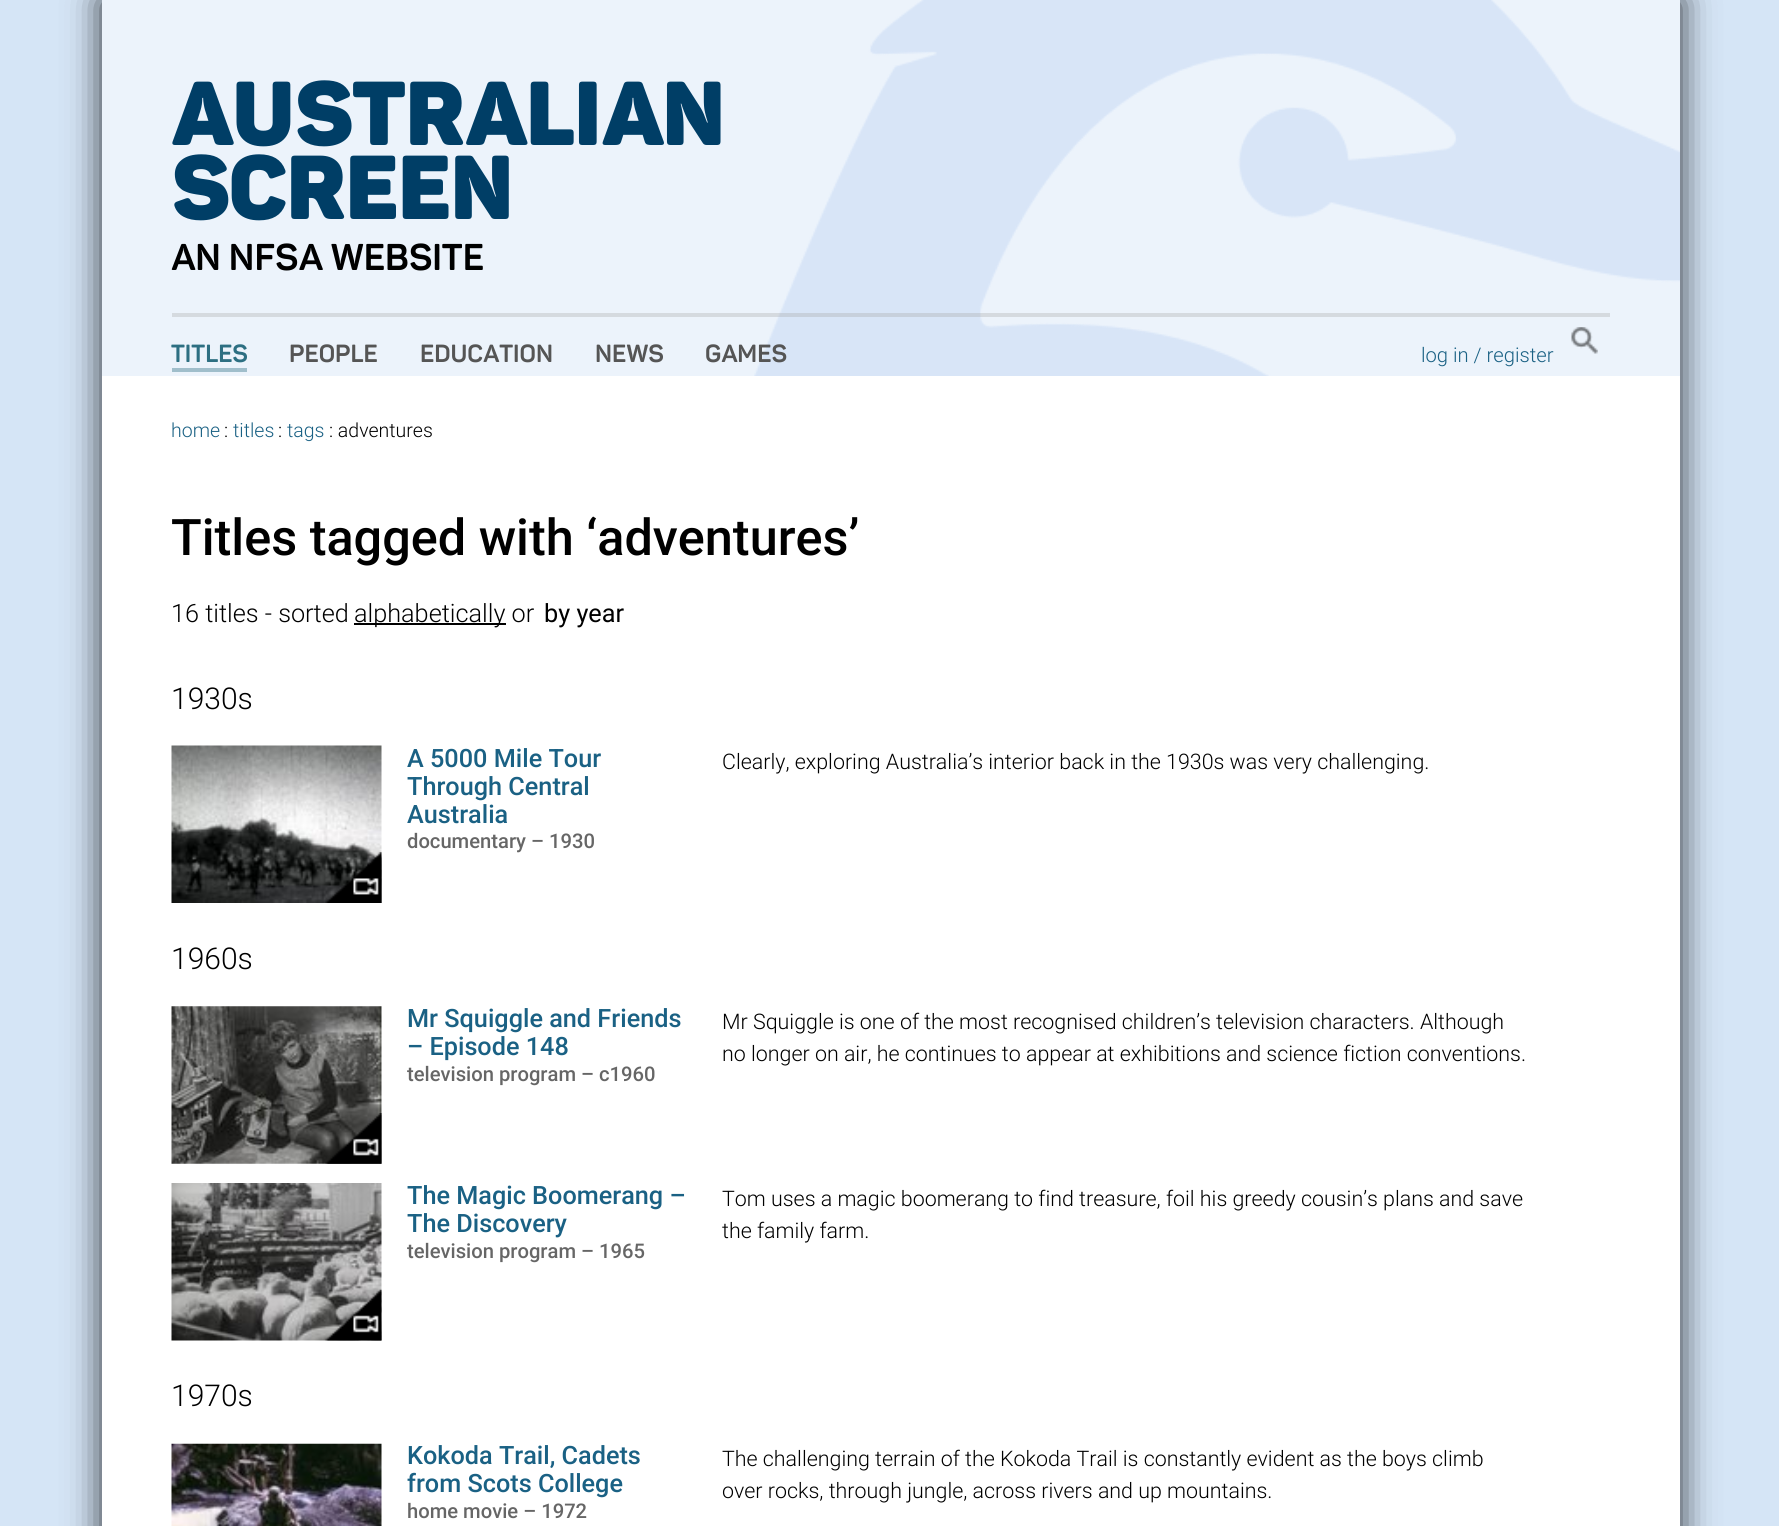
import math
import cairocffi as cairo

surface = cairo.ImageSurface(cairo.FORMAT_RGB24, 1779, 1526)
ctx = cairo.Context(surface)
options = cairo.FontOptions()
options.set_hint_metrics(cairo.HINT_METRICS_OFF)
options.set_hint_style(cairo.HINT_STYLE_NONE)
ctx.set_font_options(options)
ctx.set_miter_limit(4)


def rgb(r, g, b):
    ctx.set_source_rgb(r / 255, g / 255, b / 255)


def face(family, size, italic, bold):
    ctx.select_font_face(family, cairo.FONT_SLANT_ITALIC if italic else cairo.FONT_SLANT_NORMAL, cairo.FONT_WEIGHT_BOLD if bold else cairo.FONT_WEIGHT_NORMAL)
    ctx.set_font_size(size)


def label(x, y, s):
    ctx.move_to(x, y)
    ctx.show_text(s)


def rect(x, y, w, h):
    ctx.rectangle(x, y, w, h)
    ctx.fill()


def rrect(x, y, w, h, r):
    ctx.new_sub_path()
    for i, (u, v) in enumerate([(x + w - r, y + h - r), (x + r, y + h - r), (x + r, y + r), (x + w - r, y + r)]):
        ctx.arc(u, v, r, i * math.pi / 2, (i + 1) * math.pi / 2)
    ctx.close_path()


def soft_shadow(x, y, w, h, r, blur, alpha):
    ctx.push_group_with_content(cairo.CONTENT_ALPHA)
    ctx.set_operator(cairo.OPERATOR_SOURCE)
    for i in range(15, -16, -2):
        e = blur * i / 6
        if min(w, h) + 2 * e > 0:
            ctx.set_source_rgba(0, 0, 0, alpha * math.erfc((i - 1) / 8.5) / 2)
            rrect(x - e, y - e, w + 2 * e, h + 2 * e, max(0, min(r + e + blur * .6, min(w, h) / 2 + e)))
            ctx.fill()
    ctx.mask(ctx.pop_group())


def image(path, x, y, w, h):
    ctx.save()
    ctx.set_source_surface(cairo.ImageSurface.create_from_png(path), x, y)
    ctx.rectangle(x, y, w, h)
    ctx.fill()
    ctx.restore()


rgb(213, 229, 246)
ctx.paint()
rgb(0, 0, 0)
soft_shadow(102, 0, 1578, 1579, 0, 17.5, 0.8)
rgb(236, 243, 251)
rect(102, 0, 1578, 376)
image('image0.png', 754, 0, 926, 376)
face('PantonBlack', 89.25, 0, 0)
rgb(0, 62, 102)
label(171, 145, 'AUSTRALIAN')
label(171, 219, 'SCREEN')
face('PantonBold', 36.75, 0, 0)
rgb(0, 0, 0)
label(171, 270, 'AN NFSA WEBSITE')
ctx.set_source_rgba(0.624, 0.624, 0.624, 0.3)
rect(172, 313, 1438, 4)
face('PantonBold', 24.5, 0, 0)
rgb(45, 111, 130)
label(171, 362, 'TITLES')
rgb(160, 190, 203)
rect(172, 368, 75, 4)
rgb(85, 85, 85)
label(289, 362, 'PEOPLE')
label(420, 362, 'EDUCATION')
label(595, 362, 'NEWS')
label(705, 362, 'GAMES')
image('image1.png', 1571, 327, 27, 27)
face('Roboto Light', 20.2, 0, 0)
rgb(26, 97, 132)
label(1421, 362, 'log in / register')
rgb(255, 255, 255)
rect(102, 376, 1578, 1150)
face('Roboto Light', 19.5, 0, 0)
rgb(26, 97, 132)
label(171, 437, 'home')
rgb(0, 0, 0)
label(224, 437, ':')
rgb(26, 97, 132)
label(233, 437, 'titles')
rgb(0, 0, 0)
label(278, 437, ':')
rgb(26, 97, 132)
label(287, 437, 'tags')
rgb(0, 0, 0)
label(329, 437, ': adventures')
face('Roboto Medium', 50.4, 0, 0)
label(171, 555, 'Titles tagged with ‘adventures’')
face('Roboto Light', 25.25, 0, 0)
label(171, 622, '16 titles - sorted')
rect(354, 623, 152, 2)
label(354, 622, 'alphabetically or')
face('Roboto', 25.25, 0, 0)
label(544, 622, 'by year')
face('Roboto Light', 30, 0, 0)
label(171, 709, '1930s')
image('image2.png', 171, 745, 211, 158)
image('image3.png', 325, 852, 57, 51)
face('Roboto Medium', 25.25, 0, 0)
rgb(26, 97, 132)
label(407, 767, 'A 5000 Mile Tour')
label(407, 795, 'Through Central')
label(407, 823, 'Australia')
face('Roboto Medium', 20.2, 0, 0)
rgb(102, 102, 102)
label(407, 848, 'documentary – 1930')
face('Roboto Light', 21.4, 0, 0)
rgb(0, 0, 0)
label(722, 769, 'Clearly, exploring Australia’s interior back in the 1930s was very challenging.')
face('Roboto Light', 30, 0, 0)
label(171, 969, '1960s')
image('image4.png', 171, 1006, 211, 158)
image('image5.png', 325, 1113, 57, 51)
face('Roboto Medium', 25.25, 0, 0)
rgb(26, 97, 132)
label(407, 1027, 'Mr Squiggle and Friends')
label(407, 1055, '– Episode 148')
face('Roboto Medium', 20.2, 0, 0)
rgb(102, 102, 102)
label(407, 1081, 'television program – c1960')
face('Roboto Light', 21.4, 0, 0)
rgb(0, 0, 0)
label(722, 1029, 'Mr Squiggle is one of the most recognised children’s television characters. Although')
label(722, 1061, 'no longer on air, he continues to appear at exhibitions and science fiction conventions.')
image('image6.png', 171, 1183, 211, 158)
image('image7.png', 325, 1289, 57, 52)
face('Roboto Medium', 25.25, 0, 0)
rgb(26, 97, 132)
label(407, 1204, 'The Magic Boomerang –')
label(407, 1232, 'The Discovery')
face('Roboto Medium', 20.2, 0, 0)
rgb(102, 102, 102)
label(407, 1258, 'television program – 1965')
face('Roboto Light', 21.4, 0, 0)
rgb(0, 0, 0)
label(722, 1206, 'Tom uses a magic boomerang to find treasure, foil his greedy cousin’s plans and save')
label(722, 1238, 'the family farm.')
face('Roboto Light', 30, 0, 0)
label(171, 1406, '1970s')
image('image8.png', 171, 1443, 211, 83)
face('Roboto Medium', 25.25, 0, 0)
rgb(26, 97, 132)
label(407, 1464, 'Kokoda Trail, Cadets')
label(407, 1492, 'from Scots College')
face('Roboto Medium', 20.2, 0, 0)
rgb(102, 102, 102)
label(407, 1518, 'home movie – 1972')
face('Roboto Light', 21.4, 0, 0)
rgb(0, 0, 0)
label(722, 1466, 'The challenging terrain of the Kokoda Trail is constantly evident as the boys climb')
label(722, 1498, 'over rocks, through jungle, across rivers and up mountains.')
surface.write_to_png('render.png')
